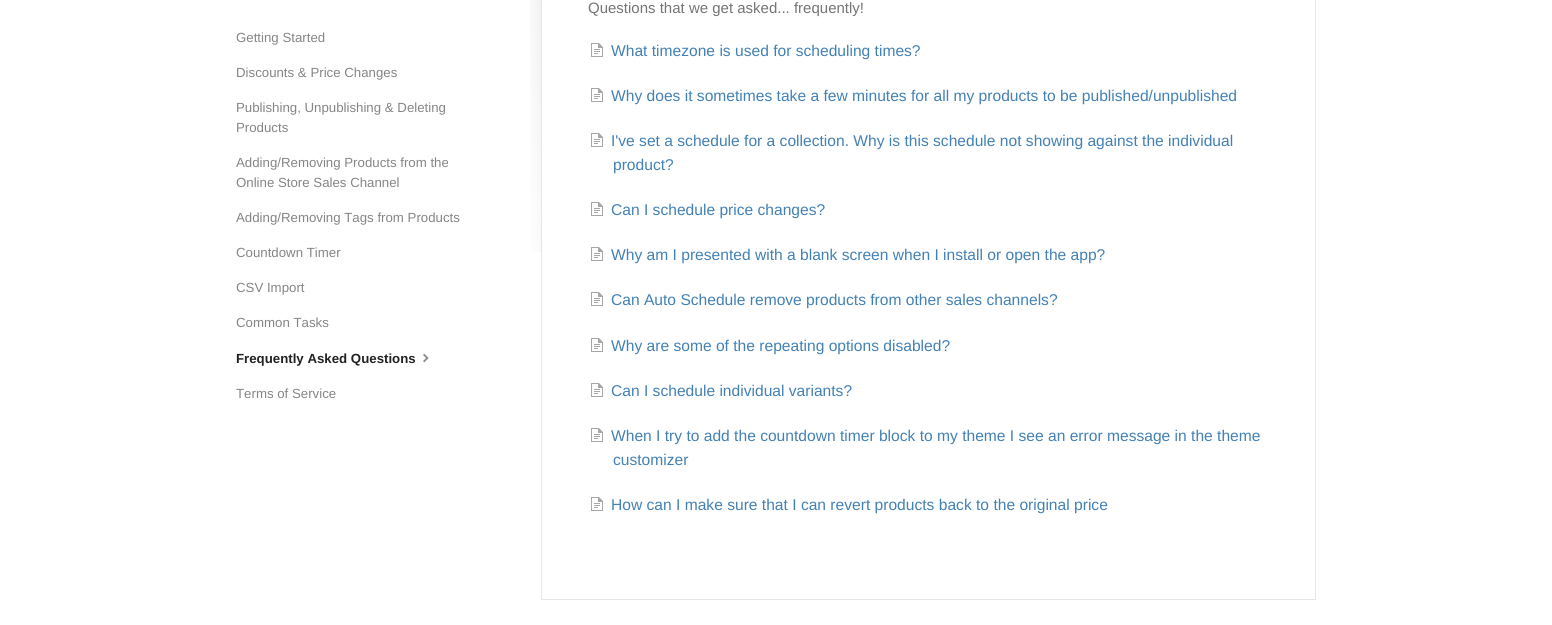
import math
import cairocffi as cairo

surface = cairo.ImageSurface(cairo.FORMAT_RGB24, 1552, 625)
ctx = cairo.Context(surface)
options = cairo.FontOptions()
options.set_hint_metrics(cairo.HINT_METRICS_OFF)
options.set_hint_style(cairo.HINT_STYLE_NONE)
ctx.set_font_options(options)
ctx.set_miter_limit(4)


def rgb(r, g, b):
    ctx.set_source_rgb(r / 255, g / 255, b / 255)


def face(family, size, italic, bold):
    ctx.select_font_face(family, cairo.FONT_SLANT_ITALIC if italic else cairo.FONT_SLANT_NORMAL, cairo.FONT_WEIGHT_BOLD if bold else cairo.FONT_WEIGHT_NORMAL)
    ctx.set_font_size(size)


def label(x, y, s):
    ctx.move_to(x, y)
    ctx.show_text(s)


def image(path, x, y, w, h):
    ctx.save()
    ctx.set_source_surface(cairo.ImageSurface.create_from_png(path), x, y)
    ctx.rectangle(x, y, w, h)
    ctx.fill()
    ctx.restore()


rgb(255, 255, 255)
ctx.paint()
face('Liberation Sans', 13.25, 0, 0)
rgb(133, 133, 133)
label(236, 42, 'Getting Started')
label(236, 77, 'Discounts & Price Changes')
label(236, 112, 'Publishing, Unpublishing & Deleting')
label(236, 132, 'Products')
label(236, 167, 'Adding/Removing Products from the')
label(236, 187, 'Online Store Sales Channel')
label(236, 222, 'Adding/Removing Tags from Products')
label(236, 257, 'Countdown Timer')
label(236, 292, 'CSV Import')
label(236, 327, 'Common Tasks')
face('Liberation Sans', 13.25, 0, 1)
rgb(34, 34, 34)
label(236, 363, 'Frequently Asked Questions')
image('image0.png', 423, 353, 6, 10)
face('Liberation Sans', 13.25, 0, 0)
rgb(133, 133, 133)
label(236, 398, 'Terms of Service')
image('image1.png', 530, 0, 11, 252)
ctx.rectangle(541.5, -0.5, 774, 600)
rgb(233, 229, 229)
ctx.set_line_width(1)
ctx.stroke()
face('Liberation Sans', 15, 0, 0)
rgb(117, 117, 117)
label(588, 13, 'Questions that we get asked... frequently!')
image('image2.png', 591, 43, 12, 14)
face('Liberation Sans', 15.6, 0, 0)
rgb(67, 129, 181)
label(611, 56, 'What timezone is used for scheduling times?')
image('image2.png', 591, 88, 12, 14)
label(611, 101, 'Why does it sometimes take a few minutes for all my products to be published/unpublished')
image('image2.png', 591, 133, 12, 14)
label(611, 146, 'I\'ve set a schedule for a collection. Why is this schedule not showing against the individual')
label(613, 170, 'product?')
image('image2.png', 591, 202, 12, 14)
label(611, 215, 'Can I schedule price changes?')
image('image2.png', 591, 247, 12, 14)
label(611, 260, 'Why am I presented with a blank screen when I install or open the app?')
image('image2.png', 591, 292, 12, 14)
label(611, 305, 'Can Auto Schedule remove products from other sales channels?')
image('image2.png', 591, 338, 12, 14)
label(611, 351, 'Why are some of the repeating options disabled?')
image('image2.png', 591, 383, 12, 14)
label(611, 396, 'Can I schedule individual variants?')
image('image2.png', 591, 428, 12, 14)
label(611, 441, 'When I try to add the countdown timer block to my theme I see an error message in the theme')
label(613, 465, 'customizer')
image('image2.png', 591, 497, 12, 14)
label(611, 510, 'How can I make sure that I can revert products back to the original price')
surface.write_to_png('render.png')
